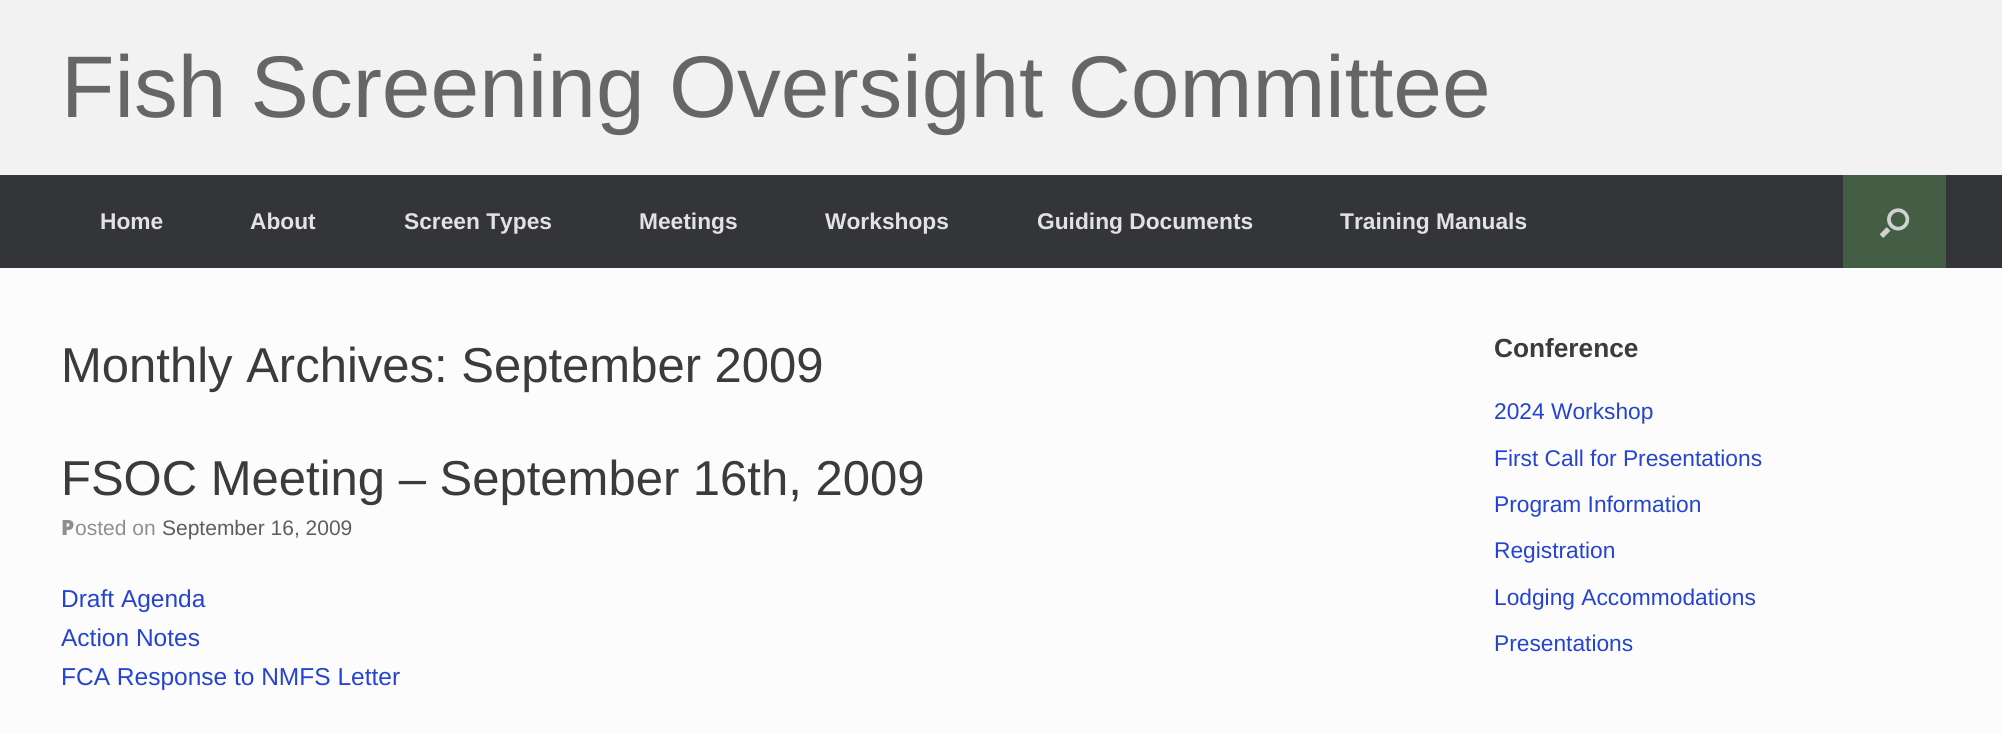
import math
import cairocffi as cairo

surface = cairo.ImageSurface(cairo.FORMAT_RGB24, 2002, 734)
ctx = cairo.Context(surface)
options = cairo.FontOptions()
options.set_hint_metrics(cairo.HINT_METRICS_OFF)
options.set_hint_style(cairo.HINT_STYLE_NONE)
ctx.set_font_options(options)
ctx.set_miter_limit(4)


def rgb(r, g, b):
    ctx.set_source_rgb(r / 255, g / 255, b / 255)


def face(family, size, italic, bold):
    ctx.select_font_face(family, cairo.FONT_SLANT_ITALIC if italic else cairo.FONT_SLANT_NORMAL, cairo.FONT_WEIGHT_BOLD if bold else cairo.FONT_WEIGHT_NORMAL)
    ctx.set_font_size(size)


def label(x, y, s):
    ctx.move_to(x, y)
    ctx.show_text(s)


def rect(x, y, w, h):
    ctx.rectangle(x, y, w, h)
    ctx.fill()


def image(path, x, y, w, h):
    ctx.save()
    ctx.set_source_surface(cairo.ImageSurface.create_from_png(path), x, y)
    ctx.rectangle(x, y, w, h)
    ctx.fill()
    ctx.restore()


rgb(242, 242, 242)
ctx.paint()
face('Liberation Sans', 87.5, 0, 0)
rgb(102, 102, 102)
label(61, 117, 'Fish Screening Oversight Committee')
rgb(52, 53, 56)
rect(0, 175, 2002, 93)
face('Liberation Sans', 22.75, 0, 1)
rgb(226, 226, 226)
label(100, 229, 'Home')
label(250, 229, 'About')
label(404, 229, 'Screen Types')
label(639, 229, 'Meetings')
label(825, 229, 'Workshops')
label(1037, 229, 'Guiding Documents')
label(1340, 229, 'Training Manuals')
rgb(67, 94, 68)
rect(1843, 175, 103, 93)
image('image0.png', 1879, 208, 31, 30)
rgb(252, 252, 252)
rect(0, 268, 2002, 466)
face('Liberation Sans', 49, 0, 0)
rgb(59, 59, 59)
label(61, 382, 'Monthly Archives: September 2009')
label(61, 495, 'FSOC Meeting – September 16th, 2009')
face('Noto Sans Black', 21, 0, 0)
rgb(143, 143, 143)
label(61, 535, 'P')
face('Liberation Sans', 21, 0, 0)
label(75, 535, 'osted on')
rgb(94, 94, 94)
label(162, 535, 'September 16, 2009')
face('Liberation Sans', 24.5, 0, 0)
rgb(37, 68, 206)
label(61, 607, 'Draft Agenda')
label(61, 646, 'Action Notes')
label(61, 685, 'FCA Response to NMFS Letter')
face('Liberation Sans', 26.25, 0, 1)
rgb(59, 59, 59)
label(1494, 357, 'Conference')
face('Liberation Sans', 22.75, 0, 0)
rgb(37, 68, 206)
label(1494, 419, '2024 Workshop')
label(1494, 466, 'First Call for Presentations')
label(1494, 512, 'Program Information')
label(1494, 558, 'Registration')
label(1494, 605, 'Lodging Accommodations')
label(1494, 651, 'Presentations')
surface.write_to_png('render.png')
